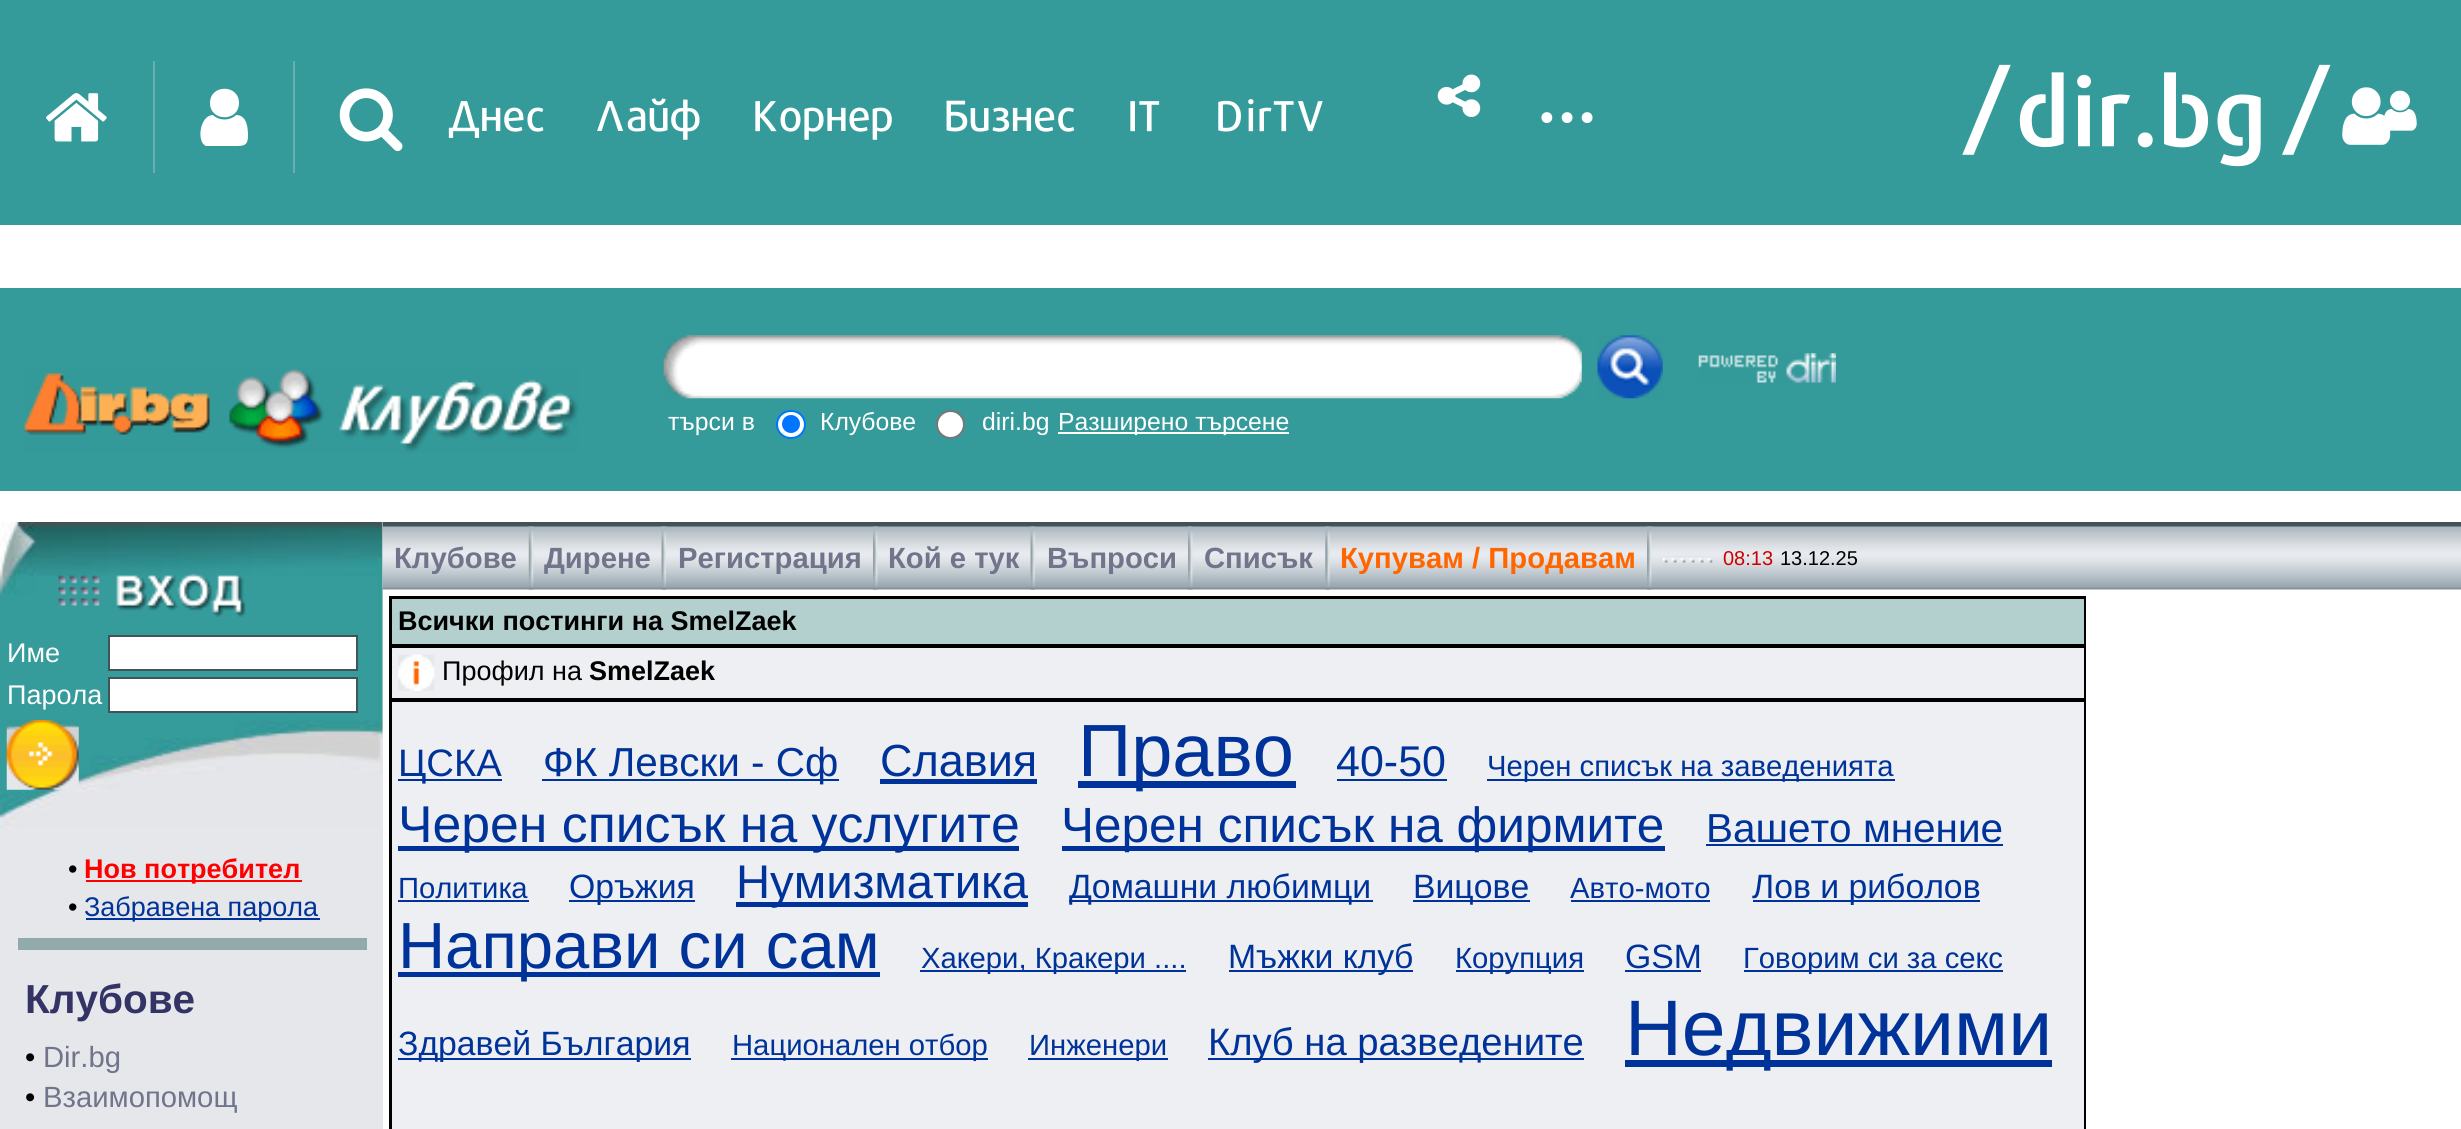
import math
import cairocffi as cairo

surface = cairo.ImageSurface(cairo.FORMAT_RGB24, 2461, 1129)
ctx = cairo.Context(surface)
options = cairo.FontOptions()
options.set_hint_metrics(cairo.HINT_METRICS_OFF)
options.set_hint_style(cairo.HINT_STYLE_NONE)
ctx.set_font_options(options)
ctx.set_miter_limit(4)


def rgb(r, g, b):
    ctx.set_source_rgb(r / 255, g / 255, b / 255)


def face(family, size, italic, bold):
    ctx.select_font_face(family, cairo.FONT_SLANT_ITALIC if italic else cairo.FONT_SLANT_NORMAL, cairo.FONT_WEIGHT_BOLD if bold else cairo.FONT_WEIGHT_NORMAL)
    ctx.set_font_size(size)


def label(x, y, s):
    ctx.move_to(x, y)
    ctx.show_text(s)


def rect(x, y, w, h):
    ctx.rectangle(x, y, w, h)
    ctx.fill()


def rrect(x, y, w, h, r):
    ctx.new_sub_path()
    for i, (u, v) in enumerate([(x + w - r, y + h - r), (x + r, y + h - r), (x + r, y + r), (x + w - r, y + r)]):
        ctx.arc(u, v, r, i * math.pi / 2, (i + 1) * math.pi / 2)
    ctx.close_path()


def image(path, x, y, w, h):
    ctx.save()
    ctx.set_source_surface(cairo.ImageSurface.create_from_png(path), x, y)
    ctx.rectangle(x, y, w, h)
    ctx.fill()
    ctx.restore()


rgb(255, 255, 255)
ctx.paint()
rgb(52, 155, 154)
rect(0, 0, 2461, 225)
image('image0.png', 46, 93, 61, 49)
rgb(104, 176, 176)
rect(153, 61, 2, 112)
rgb(255, 255, 255)
ctx.new_path()
ctx.move_to(248, 136)
ctx.curve_to(248, 146, 243, 146, 235, 146)
ctx.line_to(206, 146)
ctx.curve_to(196, 142, 200, 115, 213, 115)
ctx.curve_to(219, 121, 230, 121, 236, 115)
ctx.curve_to(247, 115, 248, 128, 248, 136)
ctx.close_path()
ctx.move_to(239, 103)
ctx.curve_to(239, 122, 210, 122, 210, 103)
ctx.curve_to(210, 84, 239, 84, 239, 103)
ctx.close_path()
ctx.fill()
rgb(104, 176, 176)
rect(293, 61, 2, 112)
image('image1.png', 339, 88, 64, 64)
face('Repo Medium', 43, 0, 0)
rgb(255, 255, 255)
label(448, 131, 'Днес')
label(597, 131, 'Лайф')
label(752, 131, 'Корнер')
label(945, 131, 'Бизнес')
label(1127, 131, 'IT')
label(1215, 131, 'DirTV')
image('image2.png', 1437, 74, 44, 43)
face('Repo Medium', 78.75, 0, 0)
label(1537, 122, '...')
image('image3.png', 1962, 64, 369, 103)
image('image4.png', 2342, 87, 75, 58)
rgb(52, 155, 154)
rect(0, 288, 2461, 203)
image('image5.png', 24, 368, 555, 85)
image('image6.png', 663, 335, 919, 64)
rgb(255, 255, 255)
rect(686, 349, 3, 2)
image('image7.png', 1597, 335, 66, 64)
image('image8.png', 1698, 353, 138, 30)
face('Liberation Sans', 24.75, 0, 0)
label(668, 430, 'търси в')
rrect(777, 411, 28, 27, 13.5)
ctx.fill_preserve()
rgb(0, 117, 255)
ctx.stroke()
ctx.arc(791, 424, 9, 0, 2 * math.pi)
ctx.fill()
rgb(255, 255, 255)
label(820, 430, 'Клубове')
ctx.new_path()
ctx.arc(950.5, 424.5, 13.5, 0, 2 * math.pi)
ctx.fill_preserve()
rgb(118, 118, 118)
ctx.stroke()
rgb(255, 255, 255)
label(982, 430, 'diri.bg')
rect(1058, 432, 231, 2)
label(1058, 430, 'Разширено търсене')
rgb(230, 231, 235)
rect(0, 522, 383, 607)
image('image9.png', 0, 522, 383, 306)
image('image10.png', 58, 573, 188, 44)
face('Liberation Sans', 27, 0, 0)
rgb(255, 255, 255)
label(7, 662, 'Име')
ctx.rectangle(109, 636, 248, 34)
ctx.fill_preserve()
rgb(65, 85, 88)
ctx.stroke()
rgb(255, 255, 255)
label(7, 704, 'Парола')
ctx.rectangle(109, 678, 248, 34)
ctx.fill_preserve()
rgb(65, 85, 88)
ctx.stroke()
image('image11.png', 6, 720, 73, 70)
rgb(0, 0, 0)
label(68, 878, '•')
rgb(255, 0, 0)
rect(86, 880, 216, 2)
face('Liberation Sans', 27, 0, 1)
label(84, 878, 'Нов потребител')
face('Liberation Sans', 27, 0, 0)
rgb(0, 0, 0)
label(68, 916, '•')
rgb(0, 51, 153)
rect(86, 918, 234, 2)
label(84, 916, 'Забравена парола')
rgb(147, 170, 170)
rect(18, 938, 349, 12)
face('Liberation Sans', 40.5, 0, 1)
rgb(51, 51, 102)
label(25, 1013, 'Клубове')
face('Liberation Sans', 29.25, 0, 0)
rgb(0, 0, 0)
label(25, 1067, '•')
rgb(112, 117, 139)
label(43, 1067, 'Dir.bg')
rgb(0, 0, 0)
label(25, 1107, '•')
rgb(112, 117, 139)
label(43, 1107, 'Взаимопомощ')
rgb(64, 84, 87)
rect(383, 522, 2078, 5)
image('image12.png', 382, 526, 2079, 64)
face('Liberation Sans', 29.25, 0, 1)
rgb(112, 117, 139)
label(394, 568, 'Клубове')
image('image13.png', 528, 526, 6, 64)
label(544, 568, 'Дирене')
image('image14.png', 661, 526, 5, 64)
label(678, 568, 'Регистрация')
image('image15.png', 873, 526, 5, 64)
label(888, 568, 'Кой е тук')
image('image14.png', 1030, 526, 5, 64)
label(1047, 568, 'Въпроси')
image('image15.png', 1188, 526, 5, 64)
label(1204, 568, 'Списък')
image('image16.png', 1325, 526, 5, 64)
rgb(255, 102, 0)
label(1340, 568, 'Купувам / Продавам')
image('image15.png', 1647, 526, 5, 64)
image('image17.png', 1662, 558, 51, 5)
face('Liberation Sans', 20, 0, 0)
rgb(204, 0, 0)
label(1723, 565, '08:13')
rgb(0, 0, 0)
label(1780, 565, '13.12.25')
rect(389, 596, 1697, 533)
rgb(179, 208, 207)
rect(392, 599, 1692, 45)
face('Liberation Sans', 27, 0, 1)
rgb(0, 0, 0)
label(398, 630, 'Всички постинги на SmelZaek')
rgb(238, 239, 242)
rect(392, 648, 1692, 50)
image('image18.png', 398, 654, 37, 37)
face('Liberation Sans', 27, 0, 0)
rgb(0, 0, 0)
label(442, 680, 'Профил на')
face('Liberation Sans', 27, 0, 1)
label(589, 680, 'SmelZaek')
rgb(238, 239, 242)
rect(392, 702, 1692, 427)
rgb(0, 51, 153)
rect(398, 779, 104, 2)
face('Liberation Sans', 38.25, 0, 0)
label(398, 776, 'ЦСКА')
rect(542, 779, 297, 2)
face('Liberation Sans', 40.5, 0, 0)
label(543, 776, 'ФК Левски - Сф')
face('Liberation Sans', 45, 0, 0)
label(880, 776, 'Славия')
rect(880, 779, 157, 5)
rect(1078, 781, 218, 7)
face('Liberation Sans', 74, 0, 0)
label(1078, 776, 'Право')
face('Liberation Sans', 43, 0, 0)
label(1336, 776, '40-50')
rect(1337, 779, 110, 2)
rect(1487, 779, 408, 2)
face('Liberation Sans', 29.25, 0, 0)
label(1487, 776, 'Черен списък на заведенията')
rect(398, 846, 621, 5)
face('Liberation Sans', 51.75, 0, 0)
label(398, 842, 'Черен списък на услугите')
rect(1062, 846, 603, 5)
face('Liberation Sans', 49.5, 0, 0)
label(1061, 842, 'Черен списък на фирмите')
face('Liberation Sans', 40.5, 0, 0)
label(1706, 842, 'Вашето мнение')
rect(1706, 844, 297, 2)
face('Liberation Sans', 29.25, 0, 0)
label(398, 898, 'Политика')
rect(398, 900, 131, 2)
rect(569, 900, 126, 2)
face('Liberation Sans', 33.75, 0, 0)
label(569, 898, 'Оръжия')
rect(736, 902, 292, 5)
face('Liberation Sans', 47.25, 0, 0)
label(736, 898, 'Нумизматика')
rect(1069, 900, 304, 2)
face('Liberation Sans', 33.75, 0, 0)
label(1069, 898, 'Домашни любимци')
rect(1413, 900, 117, 2)
label(1413, 898, 'Вицове')
face('Liberation Sans', 29.25, 0, 0)
label(1570, 898, 'Авто-мото')
rect(1571, 900, 139, 2)
rect(1753, 900, 227, 2)
face('Liberation Sans', 33.75, 0, 0)
label(1752, 898, 'Лов и риболов')
rect(398, 972, 482, 5)
face('Liberation Sans', 65.25, 0, 0)
label(398, 968, 'Направи си сам')
rect(920, 970, 266, 2)
face('Liberation Sans', 29.25, 0, 0)
label(921, 968, 'Хакери, Кракери ....')
rect(1229, 970, 184, 2)
face('Liberation Sans', 33.75, 0, 0)
label(1228, 968, 'Мъжки клуб')
rect(1456, 970, 128, 2)
face('Liberation Sans', 29.25, 0, 0)
label(1455, 968, 'Корупция')
face('Liberation Sans', 33.75, 0, 0)
label(1625, 968, 'GSM')
rect(1625, 970, 76, 2)
rect(1744, 970, 259, 2)
face('Liberation Sans', 29.25, 0, 0)
label(1743, 968, 'Говорим си за секс')
rect(398, 1058, 293, 2)
face('Liberation Sans', 33.75, 0, 0)
label(398, 1055, 'Здравей България')
rect(731, 1058, 257, 2)
face('Liberation Sans', 29.25, 0, 0)
label(732, 1055, 'Национален отбор')
rect(1028, 1058, 140, 2)
label(1029, 1055, 'Инженери')
rect(1208, 1058, 376, 2)
face('Liberation Sans', 38.25, 0, 0)
label(1208, 1055, 'Клуб на разведените')
rect(1625, 1060, 427, 7)
face('Liberation Sans', 78.75, 0, 0)
label(1625, 1055, 'Недвижими')
surface.write_to_png('render.png')
